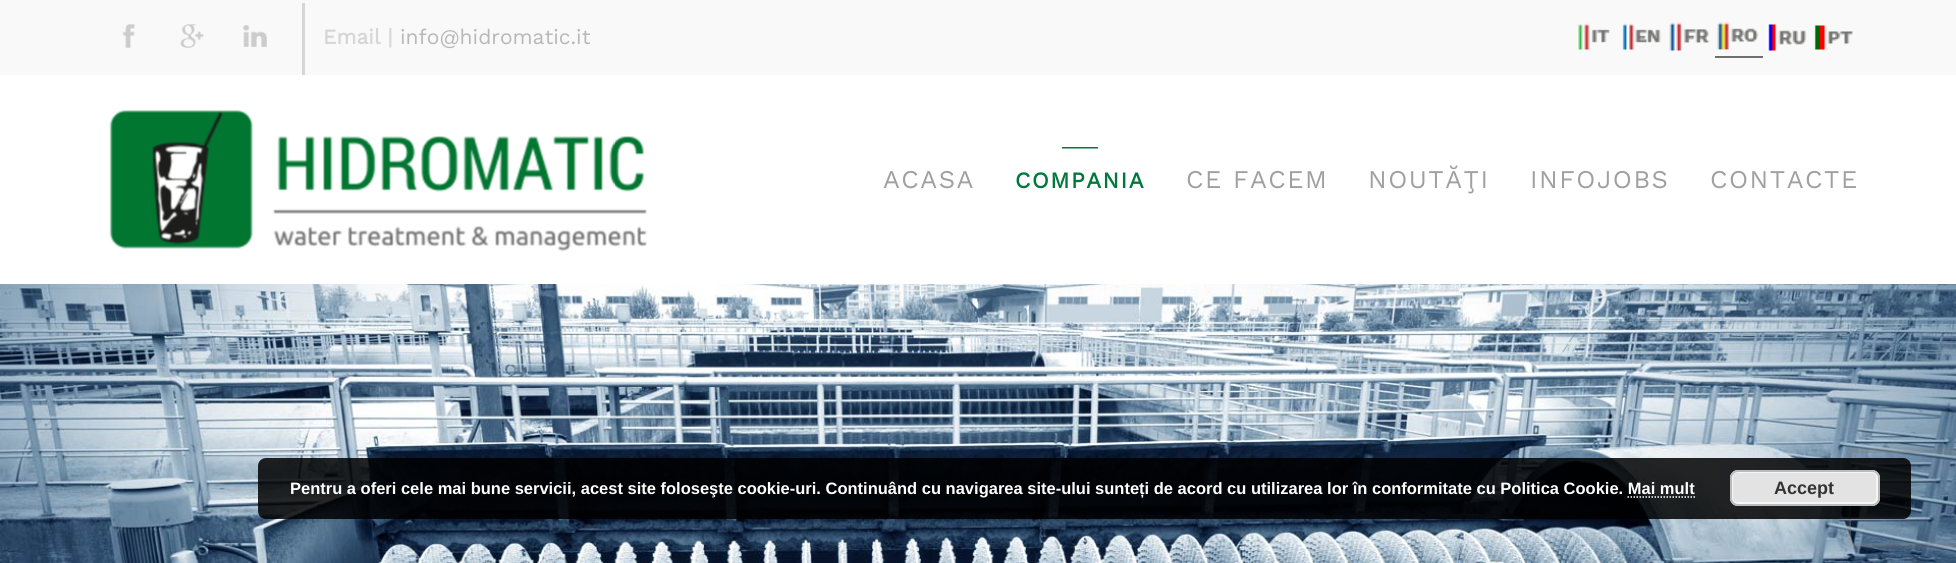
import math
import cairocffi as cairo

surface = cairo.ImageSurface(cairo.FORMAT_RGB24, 1956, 563)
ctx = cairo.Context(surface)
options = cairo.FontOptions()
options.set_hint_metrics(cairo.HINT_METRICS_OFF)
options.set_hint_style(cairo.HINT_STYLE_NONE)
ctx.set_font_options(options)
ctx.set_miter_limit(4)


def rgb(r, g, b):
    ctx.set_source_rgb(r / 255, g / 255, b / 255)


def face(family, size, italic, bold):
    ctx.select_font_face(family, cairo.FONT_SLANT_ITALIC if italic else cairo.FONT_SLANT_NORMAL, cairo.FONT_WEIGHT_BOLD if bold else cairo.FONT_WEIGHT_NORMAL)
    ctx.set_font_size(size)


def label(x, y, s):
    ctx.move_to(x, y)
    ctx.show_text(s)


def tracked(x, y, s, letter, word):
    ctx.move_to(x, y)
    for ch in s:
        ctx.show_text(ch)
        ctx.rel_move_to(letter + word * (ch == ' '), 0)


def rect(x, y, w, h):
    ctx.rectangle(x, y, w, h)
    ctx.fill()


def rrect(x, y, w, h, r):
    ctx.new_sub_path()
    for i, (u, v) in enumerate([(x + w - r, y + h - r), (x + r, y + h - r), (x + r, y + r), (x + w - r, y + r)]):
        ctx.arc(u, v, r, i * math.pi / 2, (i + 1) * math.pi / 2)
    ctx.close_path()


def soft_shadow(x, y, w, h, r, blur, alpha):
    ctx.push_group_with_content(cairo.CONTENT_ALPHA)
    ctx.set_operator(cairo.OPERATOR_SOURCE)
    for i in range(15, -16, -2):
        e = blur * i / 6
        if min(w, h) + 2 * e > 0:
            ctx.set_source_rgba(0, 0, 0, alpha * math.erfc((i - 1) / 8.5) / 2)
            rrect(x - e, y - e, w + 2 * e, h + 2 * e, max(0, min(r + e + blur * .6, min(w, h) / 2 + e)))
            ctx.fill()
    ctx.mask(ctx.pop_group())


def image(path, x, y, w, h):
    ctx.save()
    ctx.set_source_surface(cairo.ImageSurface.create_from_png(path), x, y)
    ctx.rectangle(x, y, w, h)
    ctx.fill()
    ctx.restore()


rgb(255, 255, 255)
ctx.paint()
rgb(249, 249, 249)
rect(0, 0, 1956, 75)
image('image0.png', 122, 24, 13, 24)
image('image1.png', 180, 24, 24, 24)
image('image2.png', 243, 25, 24, 22)
rgb(214, 214, 214)
rect(302, 3, 3, 72)
face('Work Sans', 21, 0, 1)
label(323, 44, 'Email |')
face('Work Sans', 21, 0, 0)
rgb(183, 183, 183)
label(400, 44, 'info@hidromatic.it')
image('image3.png', 1578, 23, 32, 27)
image('image4.png', 1622, 23, 39, 27)
image('image5.png', 1669, 22, 41, 29)
rgb(112, 112, 112)
rect(1715, 56, 48, 2)
image('image6.png', 1717, 22, 42, 28)
image('image7.png', 1766, 24, 40, 27)
image('image8.png', 1814, 25, 39, 25)
image('image9.png', 109, 110, 538, 142)
face('Work Sans', 25.5, 0, 0)
rgb(160, 160, 160)
tracked(883, 188, 'ACASA', 1.5, 0)
image('image10.png', 1062, 147, 36, 2)
face('Work Sans', 22.5, 0, 1)
rgb(0, 120, 59)
tracked(1015, 188, 'COMPANIA', 1.5, 0)
face('Work Sans', 25.5, 0, 0)
rgb(160, 160, 160)
tracked(1186, 188, 'CE FACEM', 1.5, 0)
tracked(1368, 188, 'NOUTĂŢI', 1.5, 0)
tracked(1530, 188, 'INFOJOBS', 1.5, 0)
tracked(1710, 188, 'CONTACTE', 1.5, 0)
image('image11.png', 0, 284, 1956, 279)
ctx.save()
ctx.set_fill_rule(cairo.FILL_RULE_EVEN_ODD)
ctx.new_path()
ctx.move_to(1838, 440)
ctx.line_to(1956, 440)
ctx.line_to(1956, 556)
ctx.line_to(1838, 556)
ctx.close_path()
ctx.move_to(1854, 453)
ctx.line_to(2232, 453)
ctx.curve_to(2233.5, 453, 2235, 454.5, 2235, 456)
ctx.line_to(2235, 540)
ctx.curve_to(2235, 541.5, 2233.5, 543, 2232, 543)
ctx.line_to(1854, 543)
ctx.curve_to(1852.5, 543, 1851, 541.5, 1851, 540)
ctx.line_to(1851, 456)
ctx.curve_to(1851, 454.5, 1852.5, 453, 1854, 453)
ctx.close_path()
ctx.clip()
rgb(128, 128, 128)
soft_shadow(1851, 453, 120, 90, 3, 4, 1)
ctx.restore()
ctx.set_source_rgba(0, 0, 0, 0.85)
rrect(258, 458, 1653, 61, 8)
ctx.fill()
face('Liberation Sans', 16.5, 0, 1)
rgb(255, 255, 255)
label(290, 494, 'Pentru a oferi cele mai bune servicii, acest site foloseşte cookie-uri. Continuând cu navigarea site-ului sunteți de acord cu utilizarea lor în conformitate cu Politica Cookie. Mai mult')
rgb(227, 227, 227)
rrect(1730, 470, 150, 36, 8)
ctx.fill()
rrect(1732, 472, 145, 31, 5)
rgb(246, 246, 246)
ctx.stroke()
rrect(1731, 471, 148, 34, 7)
rgb(187, 187, 187)
ctx.stroke()
face('Liberation Sans', 18, 0, 1)
rgb(51, 51, 51)
label(1774, 494, 'Accept')
ctx.new_path()
ctx.move_to(1627.5, 497)
ctx.line_to(1695, 497)
rgb(255, 255, 255)
ctx.set_line_width(1.5)
ctx.set_dash([1.5, 1.5])
ctx.stroke()
surface.write_to_png('render.png')
